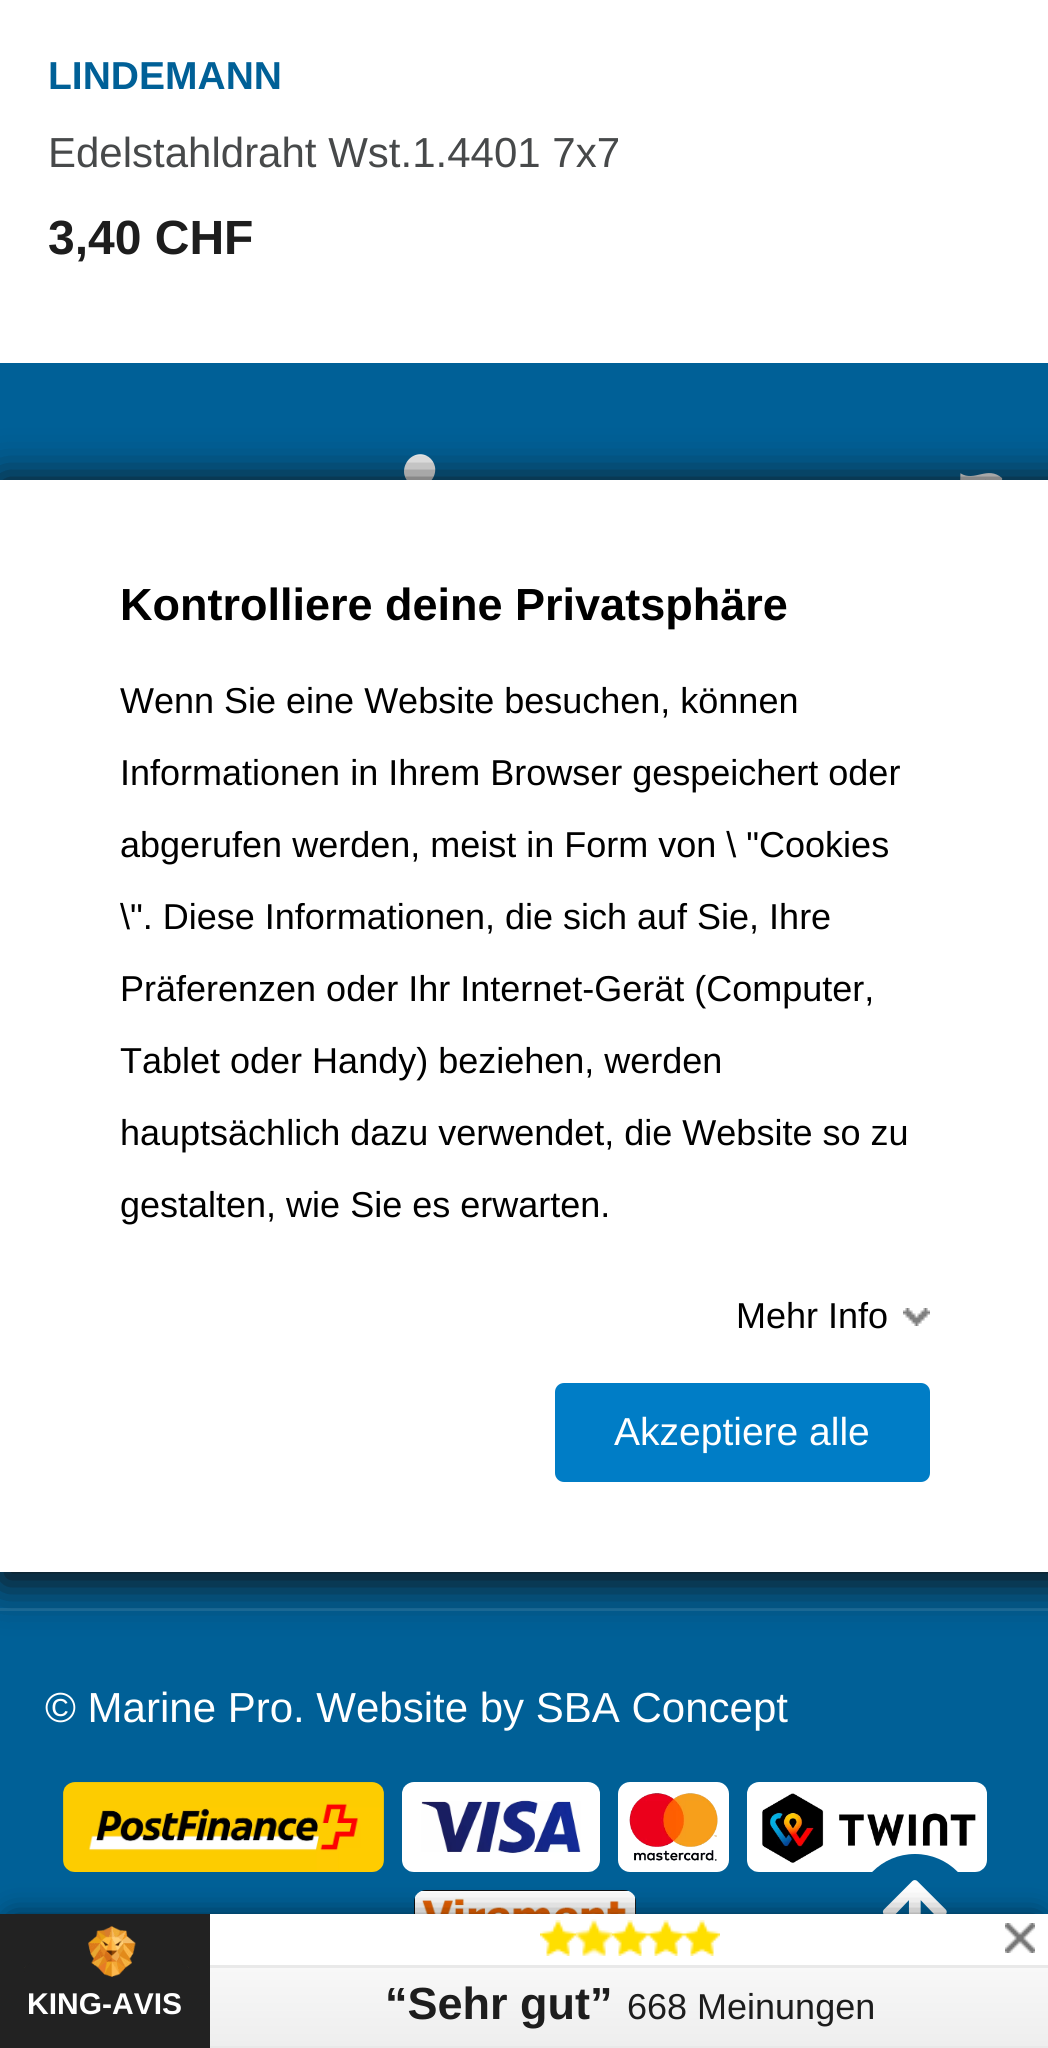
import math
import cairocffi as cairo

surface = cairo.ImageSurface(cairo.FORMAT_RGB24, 1048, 2048)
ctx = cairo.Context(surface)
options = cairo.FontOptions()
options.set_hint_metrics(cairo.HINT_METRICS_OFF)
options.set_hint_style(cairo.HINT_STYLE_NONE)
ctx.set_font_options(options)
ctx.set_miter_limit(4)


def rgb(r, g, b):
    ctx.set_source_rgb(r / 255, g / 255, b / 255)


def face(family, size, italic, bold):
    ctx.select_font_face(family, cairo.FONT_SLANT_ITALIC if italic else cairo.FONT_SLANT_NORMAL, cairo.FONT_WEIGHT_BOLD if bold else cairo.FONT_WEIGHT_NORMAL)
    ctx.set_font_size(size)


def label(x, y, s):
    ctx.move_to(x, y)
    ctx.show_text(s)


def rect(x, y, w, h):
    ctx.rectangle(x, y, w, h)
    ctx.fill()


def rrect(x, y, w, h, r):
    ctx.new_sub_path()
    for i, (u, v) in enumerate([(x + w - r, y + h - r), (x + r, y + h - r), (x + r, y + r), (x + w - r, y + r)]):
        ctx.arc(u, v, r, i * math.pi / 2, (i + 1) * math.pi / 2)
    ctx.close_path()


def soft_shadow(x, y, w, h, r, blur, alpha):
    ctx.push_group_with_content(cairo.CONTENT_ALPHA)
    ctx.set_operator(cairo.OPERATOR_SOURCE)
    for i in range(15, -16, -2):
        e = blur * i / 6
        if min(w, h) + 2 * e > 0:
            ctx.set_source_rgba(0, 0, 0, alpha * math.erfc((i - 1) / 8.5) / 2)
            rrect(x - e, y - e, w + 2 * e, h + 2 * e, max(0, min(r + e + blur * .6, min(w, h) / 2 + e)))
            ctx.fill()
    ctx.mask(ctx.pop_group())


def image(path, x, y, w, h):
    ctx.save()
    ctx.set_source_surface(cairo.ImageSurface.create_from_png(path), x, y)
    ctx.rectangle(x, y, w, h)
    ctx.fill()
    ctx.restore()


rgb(255, 255, 255)
ctx.paint()
face('Liberation Sans', 39, 0, 1)
rgb(0, 96, 151)
label(48, 89, 'LINDEMANN')
face('Liberation Sans', 42, 0, 0)
rgb(71, 73, 74)
label(48, 167, 'Edelstahldraht Wst.1.4401 7x7')
face('Liberation Sans', 48, 0, 1)
rgb(29, 29, 29)
label(48, 254, '3,40 CHF')
rgb(0, 96, 151)
rect(0, 363, 1048, 1551)
image('image0.png', 404, 454, 599, 26)
rgb(26, 112, 161)
rect(0, 1608, 1048, 3)
face('Liberation Sans', 42, 0, 0)
rgb(255, 255, 255)
label(45, 1722, '© Marine Pro. Website by SBA Concept')
image('image1.png', 63, 1782, 321, 90)
image('image2.png', 402, 1782, 198, 90)
rrect(618, 1782, 111, 90, 12)
ctx.fill()
image('image3.png', 629, 1793, 89, 68)
image('image4.png', 747, 1782, 240, 90)
image('image5.png', 414, 1890, 222, 24)
rgb(18, 18, 18)
soft_shadow(0, 480, 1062, 1104, 0, 21, 1)
rgb(255, 255, 255)
rect(0, 480, 1048, 1092)
face('Liberation Sans', 45, 0, 1)
rgb(0, 0, 0)
label(120, 620, 'Kontrolliere deine Privatsphäre')
face('Liberation Sans', 36, 0, 0)
label(120, 713, 'Wenn Sie eine Website besuchen, können')
label(120, 785, 'Informationen in Ihrem Browser gespeichert oder')
label(120, 857, 'abgerufen werden, meist in Form von \\ "Cookies')
label(120, 929, '\\". Diese Informationen, die sich auf Sie, Ihre')
label(120, 1001, 'Präferenzen oder Ihr Internet-Gerät (Computer,')
label(120, 1073, 'Tablet oder Handy) beziehen, werden')
label(120, 1145, 'hauptsächlich dazu verwendet, die Website so zu')
label(120, 1217, 'gestalten, wie Sie es erwarten.')
label(736, 1328, 'Mehr Info')
image('image6.png', 903, 1308, 27, 18)
rgb(0, 125, 198)
rrect(555, 1383, 375, 99, 9)
ctx.fill()
face('Liberation Sans', 39, 0, 0)
rgb(255, 255, 255)
label(614, 1445, 'Akzeptiere alle')
rgb(0, 96, 151)
ctx.new_path()
ctx.arc(915, 1914, 60, 0, 2 * math.pi)
ctx.fill()
image('image7.png', 882, 1880, 65, 34)
rgb(0, 0, 0)
soft_shadow(12, 1920, 1026, 111, 0, 15, 0.75)
rgb(34, 34, 34)
rect(0, 1914, 210, 134)
image('image8.png', 24, 1926, 165, 51)
face('Liberation Sans', 30, 0, 1)
rgb(255, 255, 255)
label(27, 2014, 'KING-AVIS')
gradient = cairo.LinearGradient(630, 1914, 630, 2046)
gradient.add_color_stop_rgba(0, 1, 1, 1, 1)
gradient.add_color_stop_rgba(1, 0.933, 0.933, 0.933, 1)
ctx.set_source(gradient)
rect(210, 1968, 838, 78)
rgb(233, 233, 233)
rect(210, 2046, 838, 2)
rgb(255, 255, 255)
rect(210, 1914, 838, 51)
rgb(233, 233, 233)
rect(210, 1965, 838, 3)
image('image9.png', 540, 1920, 36, 36)
image('image10.png', 576, 1919, 36, 37)
image('image11.png', 612, 1920, 36, 36)
image('image12.png', 648, 1920, 36, 36)
image('image11.png', 684, 1920, 36, 36)
image('image13.png', 1005, 1923, 30, 30)
face('Liberation Sans', 45, 0, 1)
rgb(29, 29, 29)
label(385, 2019, '“Sehr gut”')
face('Liberation Sans', 36, 0, 0)
label(627, 2019, '668 Meinungen')
surface.write_to_png('render.png')
